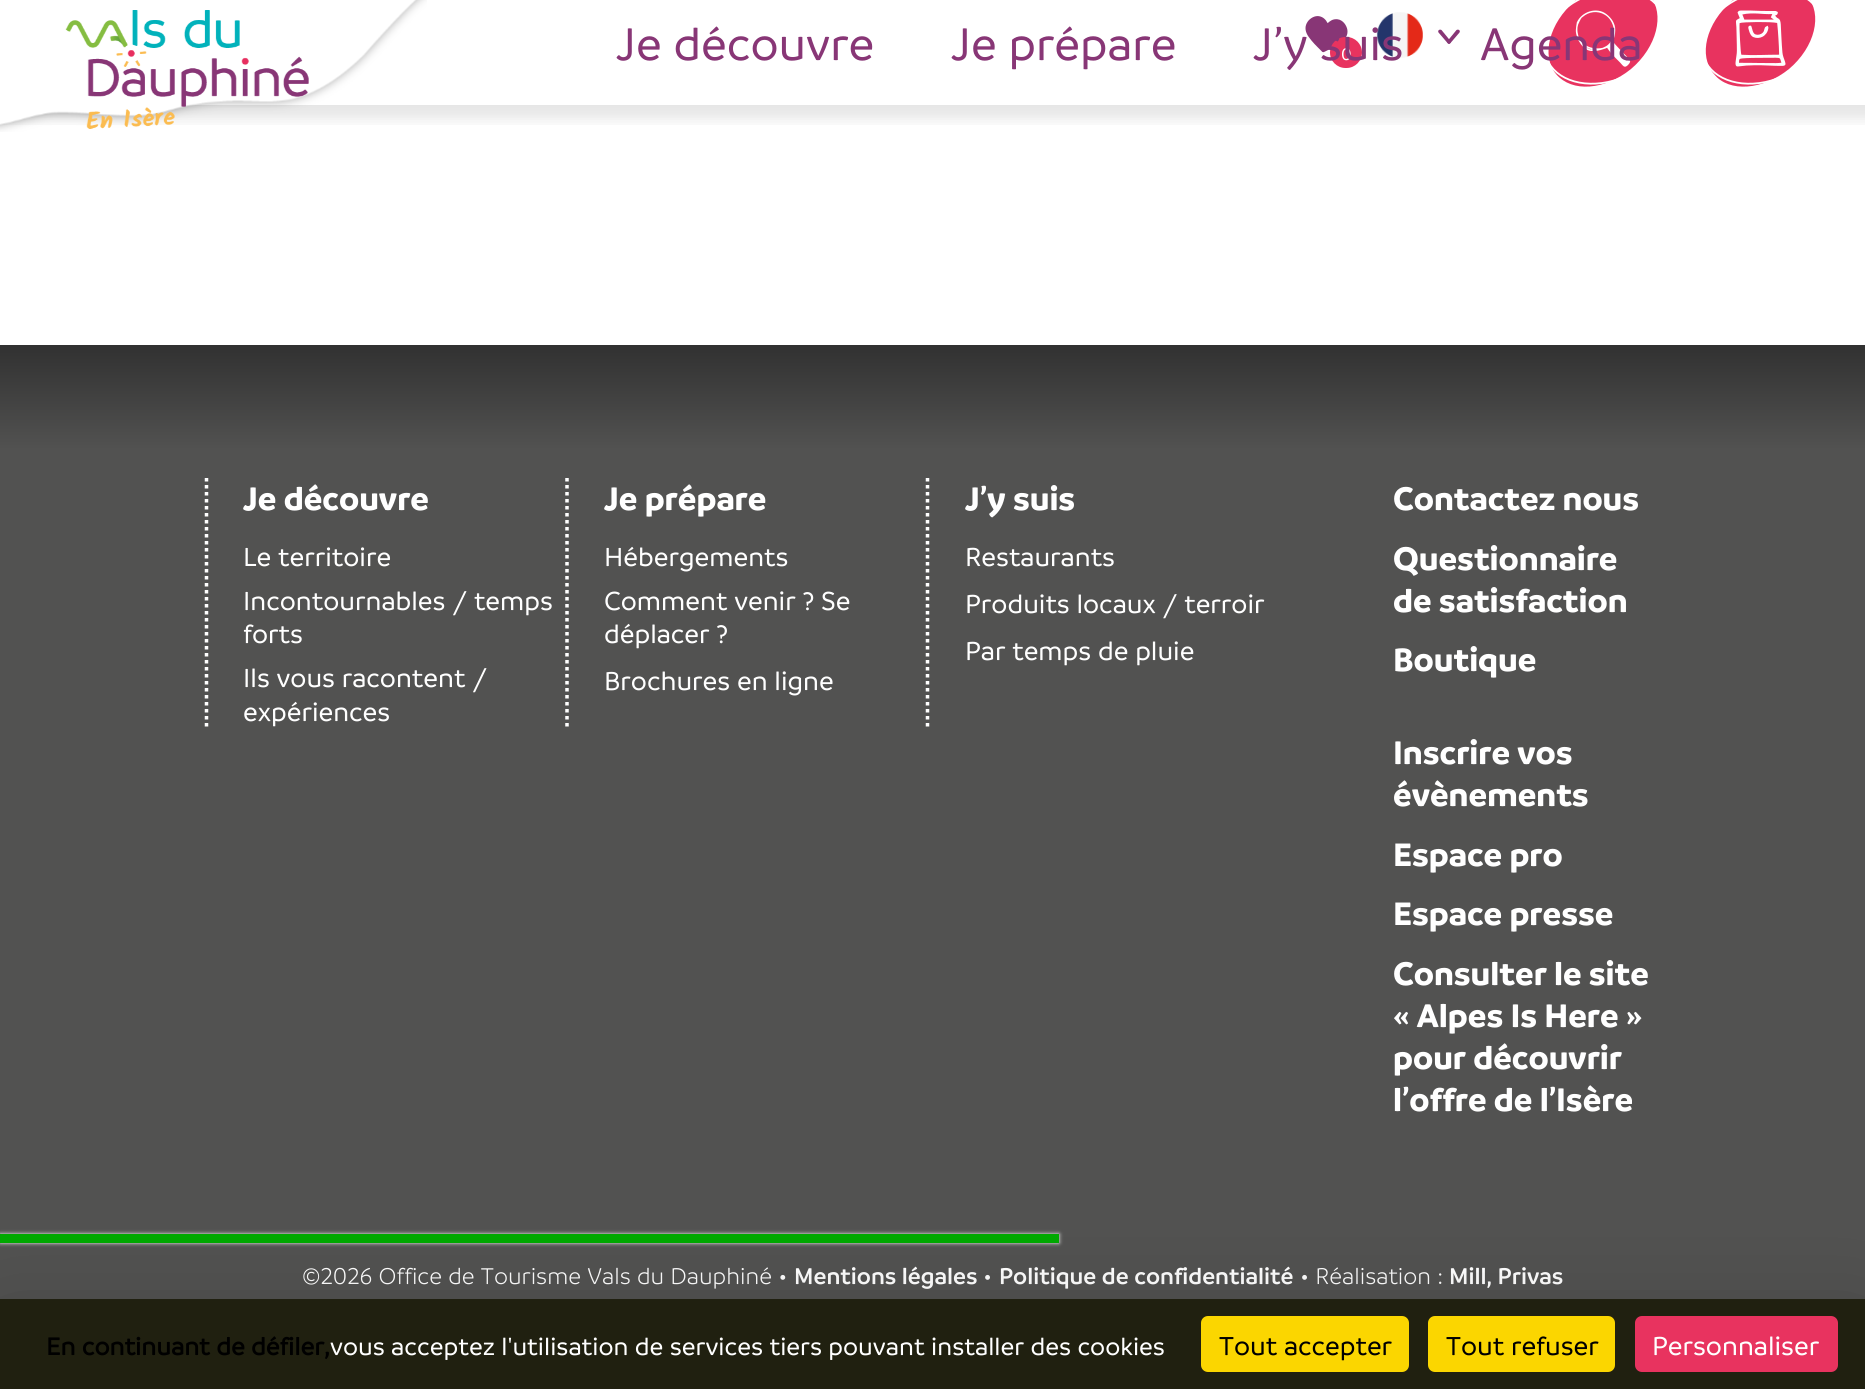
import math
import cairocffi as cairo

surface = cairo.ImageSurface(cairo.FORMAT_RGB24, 1865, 1389)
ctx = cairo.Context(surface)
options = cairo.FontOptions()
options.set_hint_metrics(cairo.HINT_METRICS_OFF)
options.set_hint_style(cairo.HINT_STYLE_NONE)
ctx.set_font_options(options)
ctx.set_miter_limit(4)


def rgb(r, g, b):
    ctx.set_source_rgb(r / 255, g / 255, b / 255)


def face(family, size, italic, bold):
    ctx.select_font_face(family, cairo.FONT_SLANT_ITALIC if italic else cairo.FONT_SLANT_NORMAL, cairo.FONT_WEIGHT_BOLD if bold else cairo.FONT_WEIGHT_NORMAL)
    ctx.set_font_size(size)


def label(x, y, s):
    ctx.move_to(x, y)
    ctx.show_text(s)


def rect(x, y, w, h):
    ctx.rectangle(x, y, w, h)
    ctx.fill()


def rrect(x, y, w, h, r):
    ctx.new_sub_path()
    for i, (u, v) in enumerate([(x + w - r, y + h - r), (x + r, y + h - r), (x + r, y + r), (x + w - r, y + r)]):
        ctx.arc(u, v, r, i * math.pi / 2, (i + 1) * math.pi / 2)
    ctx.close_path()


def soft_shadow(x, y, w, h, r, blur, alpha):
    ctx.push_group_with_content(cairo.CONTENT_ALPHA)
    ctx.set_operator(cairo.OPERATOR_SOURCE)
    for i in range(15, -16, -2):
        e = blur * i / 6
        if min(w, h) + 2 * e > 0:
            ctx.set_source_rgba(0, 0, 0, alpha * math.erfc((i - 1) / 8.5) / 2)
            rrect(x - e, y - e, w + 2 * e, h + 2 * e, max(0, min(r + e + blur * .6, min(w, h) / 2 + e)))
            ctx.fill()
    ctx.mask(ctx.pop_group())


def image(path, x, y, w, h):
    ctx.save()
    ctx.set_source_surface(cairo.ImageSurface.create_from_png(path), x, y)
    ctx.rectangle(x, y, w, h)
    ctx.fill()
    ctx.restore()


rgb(255, 255, 255)
ctx.paint()
ctx.save()
ctx.rectangle(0, 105, 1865, 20)
ctx.clip()
rgb(0, 0, 0)
soft_shadow(-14, -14, 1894, 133, 0, 7, 0.1)
ctx.restore()
image('image0.png', 0, 0, 427, 132)
image('image1.png', 65, 10, 244, 119)
face('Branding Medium', 49, 0, 0)
rgb(136, 54, 118)
label(616, 60, 'Je découvre')
label(951, 60, 'Je prépare')
image('image2.png', 1305, 16, 43, 37)
rgb(232, 51, 95)
rrect(1330, 37, 32, 31, 15.5)
ctx.fill()
face('Branding Medium', 18, 0, 0)
rgb(255, 255, 255)
label(1341, 60, '0')
image('image3.png', 1376, 12, 47, 46)
face('Branding Medium', 49, 0, 0)
rgb(136, 54, 118)
label(1253, 60, 'J’y suis')
rgb(232, 51, 95)
ctx.new_path()
ctx.move_to(1575, 1)
ctx.curve_to(1601, -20, 1634, -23, 1650, -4)
ctx.curve_to(1665, 14, 1657, 47, 1631, 69)
ctx.curve_to(1605, 90, 1572, 93, 1556, 74)
ctx.curve_to(1541, 56, 1549, 23, 1575, 1)
ctx.close_path()
ctx.fill()
image('image4.png', 1575, 10, 56, 57)
ctx.new_path()
ctx.move_to(1589.5, -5)
ctx.curve_to(1621.5, -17, 1654.5, -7.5, 1663, 15.5)
ctx.curve_to(1671.5, 38.5, 1652, 67, 1620, 78.5)
ctx.curve_to(1587.5, 90.5, 1555, 81, 1546.5, 58)
ctx.curve_to(1538, 35, 1557, 6.5, 1589.5, -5)
ctx.close_path()
rgb(255, 255, 255)
ctx.set_line_width(1.8)
ctx.stroke()
rgb(136, 54, 118)
label(1480, 60, 'Agenda')
ctx.new_path()
ctx.move_to(1439, 30)
ctx.curve_to(1439.5, 29.5, 1440.5, 29.5, 1441.5, 30)
ctx.line_to(1450.5, 41)
ctx.curve_to(1451, 41.5, 1451, 42.5, 1450, 43.5)
ctx.curve_to(1449.5, 44, 1448.5, 44, 1447.5, 43)
ctx.line_to(1438.5, 32.5)
ctx.curve_to(1438, 31.5, 1438, 30.5, 1439, 30)
ctx.close_path()
ctx.fill()
ctx.new_path()
ctx.move_to(1459, 30)
ctx.curve_to(1460, 30.5, 1460, 31.5, 1459.5, 32.5)
ctx.line_to(1450.5, 43)
ctx.curve_to(1449.5, 44, 1448.5, 44, 1448, 43.5)
ctx.curve_to(1447, 42.5, 1447, 41.5, 1447.5, 41)
ctx.line_to(1456.5, 30)
ctx.curve_to(1457.5, 29.5, 1458.5, 29.5, 1459, 30)
ctx.close_path()
ctx.fill()
rgb(232, 51, 95)
ctx.new_path()
ctx.move_to(1732, 1)
ctx.curve_to(1758, -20, 1792, -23, 1807, -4)
ctx.curve_to(1823, 14, 1815, 47, 1789, 69)
ctx.curve_to(1763, 90, 1729, 93, 1714, 74)
ctx.curve_to(1698, 56, 1706, 23, 1732, 1)
ctx.close_path()
ctx.fill()
ctx.new_path()
ctx.move_to(1747, -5)
ctx.curve_to(1779, -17, 1812, -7.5, 1820.5, 15.5)
ctx.curve_to(1829, 38.5, 1809.5, 67, 1777.5, 78.5)
ctx.curve_to(1745, 90.5, 1712.5, 81, 1704, 58)
ctx.curve_to(1695.5, 35, 1714.5, 6.5, 1747, -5)
ctx.close_path()
rgb(255, 255, 255)
ctx.stroke()
image('image5.png', 1735, 10, 51, 57)
rgb(82, 82, 81)
rect(0, 450, 1865, 849)
gradient = cairo.LinearGradient(933, 345, 933, 450)
gradient.add_color_stop_rgba(0, 0.192, 0.192, 0.192, 1)
gradient.add_color_stop_rgba(1, 0.322, 0.322, 0.318, 1)
ctx.set_source(gradient)
rect(0, 345, 1865, 105)
ctx.new_path()
ctx.move_to(206.5, 478)
ctx.line_to(206.5, 728)
rgb(255, 255, 255)
ctx.set_line_width(3.5)
ctx.set_dash([3.5, 3.5])
ctx.stroke()
face('Branding', 35, 0, 1)
label(243, 510, 'Je découvre')
face('Branding Medium', 28, 0, 0)
label(243, 566, 'Le territoire')
label(243, 610, 'Incontournables / temps')
label(243, 643, 'forts')
label(243, 687, 'Ils vous racontent /')
label(243, 721, 'expériences')
ctx.new_path()
ctx.move_to(567, 478)
ctx.line_to(567, 728)
ctx.stroke()
face('Branding', 35, 0, 1)
label(604, 510, 'Je prépare')
face('Branding Medium', 28, 0, 0)
label(604, 566, 'Hébergements')
label(604, 610, 'Comment venir ? Se')
label(604, 643, 'déplacer ?')
label(604, 690, 'Brochures en ligne')
ctx.new_path()
ctx.move_to(927.5, 478)
ctx.line_to(927.5, 728)
ctx.stroke()
face('Branding', 35, 0, 1)
label(965, 510, 'J’y suis')
face('Branding Medium', 28, 0, 0)
label(965, 566, 'Restaurants')
label(965, 613, 'Produits locaux / terroir')
label(965, 660, 'Par temps de pluie')
face('Branding', 35, 0, 1)
label(1393, 510, 'Contactez nous')
label(1393, 570, 'Questionnaire')
label(1393, 612, 'de satisfaction')
label(1393, 671, 'Boutique')
label(1393, 764, 'Inscrire vos')
label(1393, 806, 'évènements')
label(1393, 866, 'Espace pro')
label(1393, 925, 'Espace presse')
label(1393, 985, 'Consulter le site')
label(1393, 1027, '« Alpes Is Here »')
label(1393, 1069, 'pour découvrir')
label(1393, 1111, 'l’offre de l’Isère')
face('Branding Light', 24.5, 0, 0)
label(302, 1284, '©2026 Office de Tourisme Vals du Dauphiné •')
face('Branding SemiBold', 24.5, 0, 0)
label(794, 1284, 'Mentions légales')
face('Branding Light', 24.5, 0, 0)
label(983, 1284, '•')
face('Branding SemiBold', 24.5, 0, 0)
label(999, 1284, 'Politique de confidentialité')
face('Branding Light', 24.5, 0, 0)
label(1300, 1284, '• Réalisation :')
face('Branding SemiBold', 24.5, 0, 0)
label(1449, 1284, 'Mill, Privas')
rgb(255, 255, 255)
soft_shadow(0, 1234, 1059, 9, 0, 2, 1)
rgb(0, 170, 0)
rect(0, 1234, 1059, 9)
rgb(0, 0, 0)
soft_shadow(0, 1334, 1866, 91, 0, 52.5, 0.25)
rgb(32, 32, 16)
rect(0, 1299, 1865, 90)
face('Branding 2', 26.25, 0, 1)
rgb(0, 0, 0)
label(46, 1355, 'En continuant de défiler,')
face('Branding Medium', 26.25, 0, 0)
rgb(255, 255, 255)
label(330, 1355, 'vous acceptez l\'utilisation de services tiers pouvant installer des cookies')
rgb(251, 214, 0)
rrect(1201, 1316, 208, 56, 7)
ctx.fill()
face('Branding Medium', 28, 0, 0)
rgb(0, 0, 0)
label(1219, 1355, 'Tout accepter')
rgb(251, 214, 0)
rrect(1428, 1316, 187, 56, 7)
ctx.fill()
rgb(0, 0, 0)
label(1446, 1355, 'Tout refuser')
rgb(232, 51, 95)
rrect(1635, 1316, 203, 56, 7)
ctx.fill()
rgb(255, 255, 255)
label(1652, 1355, 'Personnaliser')
surface.write_to_png('render.png')
